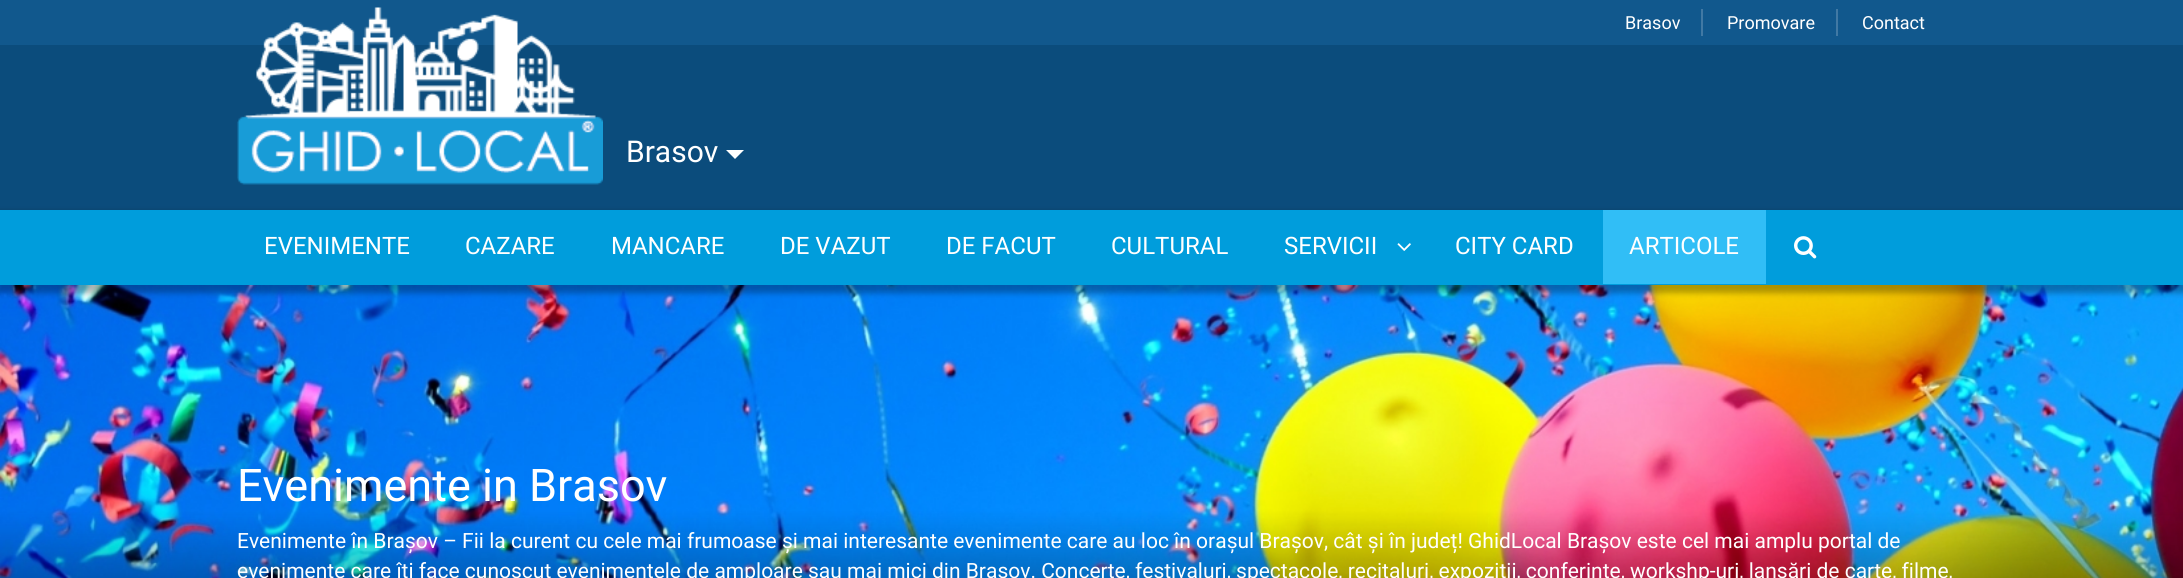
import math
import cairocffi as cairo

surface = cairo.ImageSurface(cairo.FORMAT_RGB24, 2183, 578)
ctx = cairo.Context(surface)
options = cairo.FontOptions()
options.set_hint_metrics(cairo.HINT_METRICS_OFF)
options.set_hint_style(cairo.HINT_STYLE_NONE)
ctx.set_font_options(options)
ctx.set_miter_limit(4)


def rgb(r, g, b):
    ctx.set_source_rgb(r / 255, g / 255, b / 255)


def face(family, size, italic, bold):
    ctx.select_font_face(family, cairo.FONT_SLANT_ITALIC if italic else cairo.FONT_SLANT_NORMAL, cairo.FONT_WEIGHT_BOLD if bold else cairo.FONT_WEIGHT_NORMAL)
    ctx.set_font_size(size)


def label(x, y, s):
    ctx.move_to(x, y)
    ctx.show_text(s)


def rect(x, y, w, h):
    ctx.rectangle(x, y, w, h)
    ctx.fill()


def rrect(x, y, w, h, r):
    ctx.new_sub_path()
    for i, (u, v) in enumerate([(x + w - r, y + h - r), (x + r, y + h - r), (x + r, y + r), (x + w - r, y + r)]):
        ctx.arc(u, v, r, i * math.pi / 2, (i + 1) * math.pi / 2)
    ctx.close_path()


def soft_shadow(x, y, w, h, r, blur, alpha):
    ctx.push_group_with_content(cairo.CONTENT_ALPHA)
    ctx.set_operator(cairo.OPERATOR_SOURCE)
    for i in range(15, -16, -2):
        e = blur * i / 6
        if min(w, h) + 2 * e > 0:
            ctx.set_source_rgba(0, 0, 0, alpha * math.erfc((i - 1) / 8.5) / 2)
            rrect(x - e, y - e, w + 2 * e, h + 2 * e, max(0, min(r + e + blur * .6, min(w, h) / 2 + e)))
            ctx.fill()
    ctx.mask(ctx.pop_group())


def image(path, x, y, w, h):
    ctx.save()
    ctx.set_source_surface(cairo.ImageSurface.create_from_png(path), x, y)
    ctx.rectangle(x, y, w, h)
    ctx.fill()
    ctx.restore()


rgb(255, 255, 255)
ctx.paint()
rgb(17, 88, 141)
rect(0, 0, 2183, 45)
face('Roboto', 18, 0, 0)
rgb(255, 255, 255)
label(1625, 29, 'Brasov')
rgb(65, 121, 164)
rect(1701, 9, 2, 27)
rgb(255, 255, 255)
label(1727, 29, 'Promovare')
rgb(65, 121, 164)
rect(1836, 9, 2, 27)
rgb(255, 255, 255)
label(1862, 29, 'Contact')
rgb(11, 76, 124)
rect(0, 45, 2183, 165)
image('image0.png', 237, 7, 366, 178)
face('Roboto', 30, 0, 0)
rgb(255, 255, 255)
label(626, 162, 'Brasov')
ctx.new_path()
ctx.move_to(726, 150)
ctx.line_to(744, 150)
ctx.line_to(735, 159)
ctx.close_path()
ctx.fill()
image('image3.png', 0, 285, 2183, 293)
rgb(0, 0, 0)
soft_shadow(-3, 212, 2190, 81, 0, 3, 0.3)
rgb(0, 157, 220)
rect(0, 210, 2183, 75)
face('Roboto', 24, 0, 0)
rgb(255, 255, 255)
label(264, 254, 'EVENIMENTE')
label(465, 254, 'CAZARE')
label(611, 254, 'MANCARE')
label(780, 254, 'DE VAZUT')
label(946, 254, 'DE FACUT')
label(1111, 254, 'CULTURAL')
label(1284, 254, 'SERVICII')
image('image1.png', 1397, 243, 14, 8)
label(1455, 254, 'CITY CARD')
rgb(49, 190, 246)
rect(1603, 210, 163, 74)
rgb(255, 255, 255)
label(1629, 254, 'ARTICOLE')
image('image2.png', 1794, 236, 23, 23)
face('Roboto', 45, 0, 0)
label(237, 501, 'Evenimente in Brasov')
face('Roboto', 21, 0, 0)
label(237, 548, 'Evenimente în Brașov – Fii la curent cu cele mai frumoase și mai interesante evenimente care au loc în orașul Brașov, cât și în județ! GhidLocal Brașov este cel mai amplu portal de')
label(237, 578, 'evenimente care îți face cunoscut evenimentele de amploare sau mai mici din Brașov. Concerte, festivaluri, spectacole, recitaluri, expoziții, conferințe, workshp-uri, lansări de carte, filme,')
surface.write_to_png('render.png')
